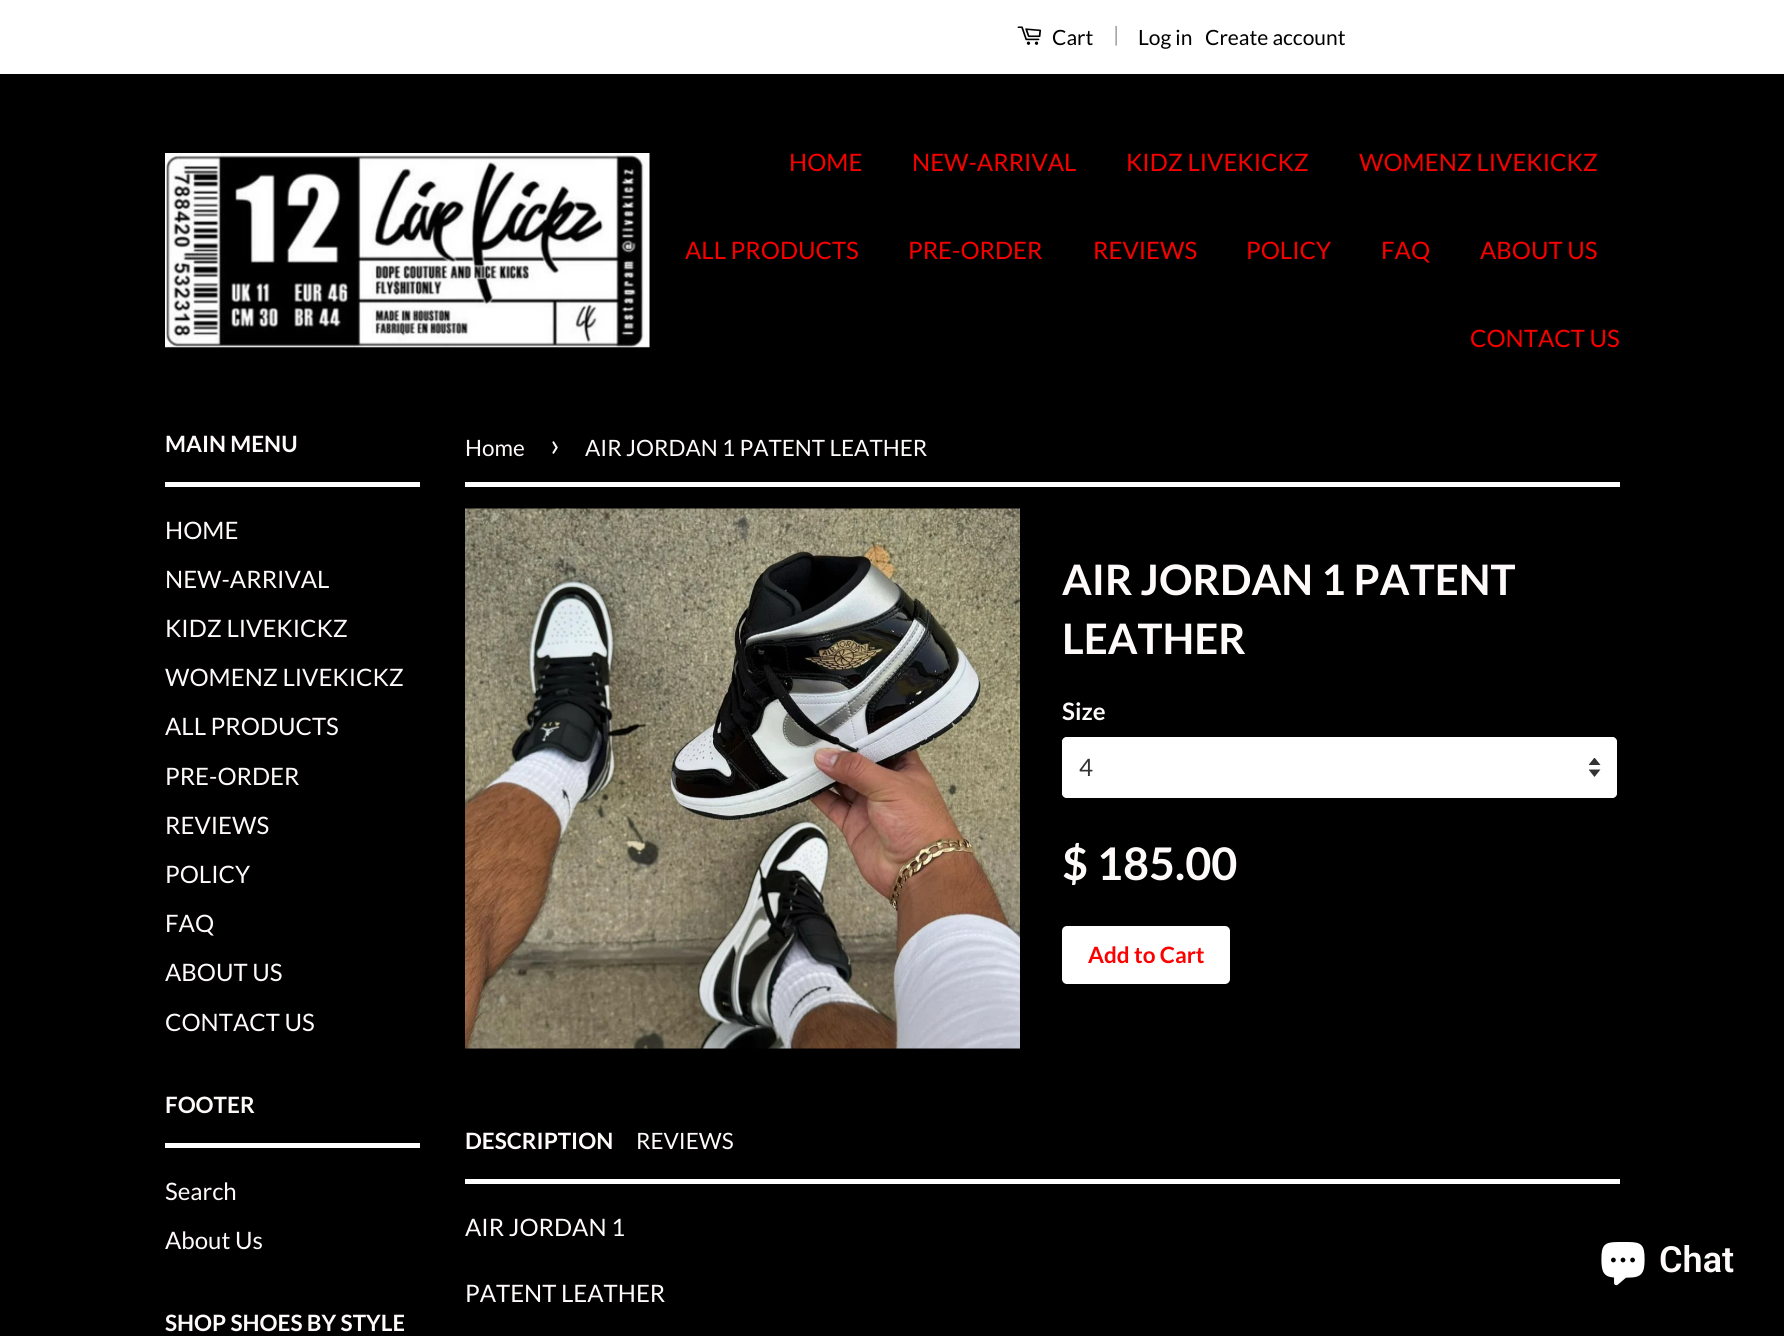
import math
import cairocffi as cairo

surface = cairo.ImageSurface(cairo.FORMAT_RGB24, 1784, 1336)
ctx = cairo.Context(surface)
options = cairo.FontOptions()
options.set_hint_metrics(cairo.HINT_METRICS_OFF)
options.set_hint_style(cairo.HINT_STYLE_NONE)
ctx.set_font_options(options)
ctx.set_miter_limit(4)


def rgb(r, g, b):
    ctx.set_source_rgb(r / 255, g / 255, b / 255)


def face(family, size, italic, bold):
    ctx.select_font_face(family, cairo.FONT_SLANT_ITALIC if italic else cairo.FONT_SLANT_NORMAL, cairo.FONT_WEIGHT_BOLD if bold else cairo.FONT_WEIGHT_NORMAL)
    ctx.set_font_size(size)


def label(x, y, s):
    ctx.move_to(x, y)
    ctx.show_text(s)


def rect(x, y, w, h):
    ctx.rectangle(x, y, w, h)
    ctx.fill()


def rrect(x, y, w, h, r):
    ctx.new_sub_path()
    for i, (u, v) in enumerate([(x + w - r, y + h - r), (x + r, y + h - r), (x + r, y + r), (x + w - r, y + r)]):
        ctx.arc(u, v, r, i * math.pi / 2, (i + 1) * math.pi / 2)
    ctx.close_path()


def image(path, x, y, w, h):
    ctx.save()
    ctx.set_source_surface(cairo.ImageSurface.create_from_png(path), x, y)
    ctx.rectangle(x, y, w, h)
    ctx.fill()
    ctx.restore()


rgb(0, 0, 0)
ctx.paint()
rgb(255, 255, 255)
rect(0, 0, 1784, 74)
image('image0.png', 1017, 26, 25, 19)
face('Lato', 21, 0, 0)
rgb(0, 0, 0)
label(1052, 45, 'Cart')
rgb(153, 153, 153)
label(1113, 42, '|')
rgb(0, 0, 0)
label(1138, 45, 'Log in')
label(1205, 45, 'Create account')
image('image1.png', 165, 153, 485, 195)
face('Lato', 24, 0, 0)
rgb(246, 0, 0)
label(789, 171, 'HOME')
label(912, 171, 'NEW-ARRIVAL')
label(1126, 171, 'KIDZ LIVEKICKZ')
label(1359, 171, 'WOMENZ LIVEKICKZ')
label(685, 259, 'ALL PRODUCTS')
label(908, 259, 'PRE-ORDER')
label(1093, 259, 'REVIEWS')
label(1246, 259, 'POLICY')
label(1381, 259, 'FAQ')
label(1480, 259, 'ABOUT US')
label(1470, 347, 'CONTACT US')
rgb(255, 255, 255)
rect(165, 482, 255, 5)
face('Lato', 22.5, 0, 1)
rgb(255, 250, 250)
label(165, 452, 'MAIN MENU')
face('Lato', 24, 0, 0)
label(165, 539, 'HOME')
label(165, 588, 'NEW-ARRIVAL')
label(165, 637, 'KIDZ LIVEKICKZ')
label(165, 686, 'WOMENZ LIVEKICKZ')
label(165, 735, 'ALL PRODUCTS')
label(165, 785, 'PRE-ORDER')
label(165, 834, 'REVIEWS')
label(165, 883, 'POLICY')
label(165, 932, 'FAQ')
label(165, 981, 'ABOUT US')
label(165, 1031, 'CONTACT US')
rgb(255, 255, 255)
rect(165, 1143, 255, 5)
face('Lato', 22.5, 0, 1)
rgb(255, 250, 250)
label(165, 1113, 'FOOTER')
face('Lato', 24, 0, 0)
label(165, 1200, 'Search')
label(165, 1249, 'About Us')
face('Lato', 22.5, 0, 1)
label(165, 1331, 'SHOP SHOES BY STYLE')
rgb(255, 255, 255)
rect(465, 482, 1155, 5)
face('Lato', 22.5, 0, 0)
rgb(255, 250, 250)
label(465, 456, 'Home')
face('Lato', 32, 0, 0)
label(550, 456, '›')
face('Lato', 22.5, 0, 0)
label(585, 456, 'AIR JORDAN 1 PATENT LEATHER')
image('image2.png', 465, 508, 555, 541)
face('Lato', 42, 0, 1)
label(1062, 595, 'AIR JORDAN 1 PATENT')
label(1062, 654, 'LEATHER')
face('Lato', 24, 0, 1)
label(1062, 720, 'Size')
rgb(255, 255, 255)
rrect(1062, 737, 555, 61, 5)
ctx.fill()
image('image3.png', 1589, 758, 12, 19)
rrect(1063, 738, 553, 59, 4)
ctx.stroke()
face('Lato', 24, 0, 0)
rgb(51, 51, 51)
label(1079, 776, '4')
face('Lato', 45, 0, 1)
rgb(255, 250, 250)
label(1062, 880, '$ 185.00')
rgb(255, 255, 255)
rrect(1062, 926, 168, 58, 5)
ctx.fill()
face('Lato', 22.5, 0, 1)
rgb(253, 0, 0)
label(1088, 963, 'Add to Cart')
rgb(255, 255, 255)
rect(465, 1179, 1155, 5)
rgb(255, 250, 250)
label(465, 1149, 'DESCRIPTION')
face('Lato', 22.5, 0, 0)
label(636, 1149, 'REVIEWS')
face('Lato', 24, 0, 0)
label(465, 1236, 'AIR JORDAN 1')
label(465, 1302, 'PATENT LEATHER')
image('image4.png', 1601, 1242, 44, 44)
face('Roboto SemiBold', 36, 0, 0)
label(1659, 1272, 'Chat')
surface.write_to_png('render.png')
